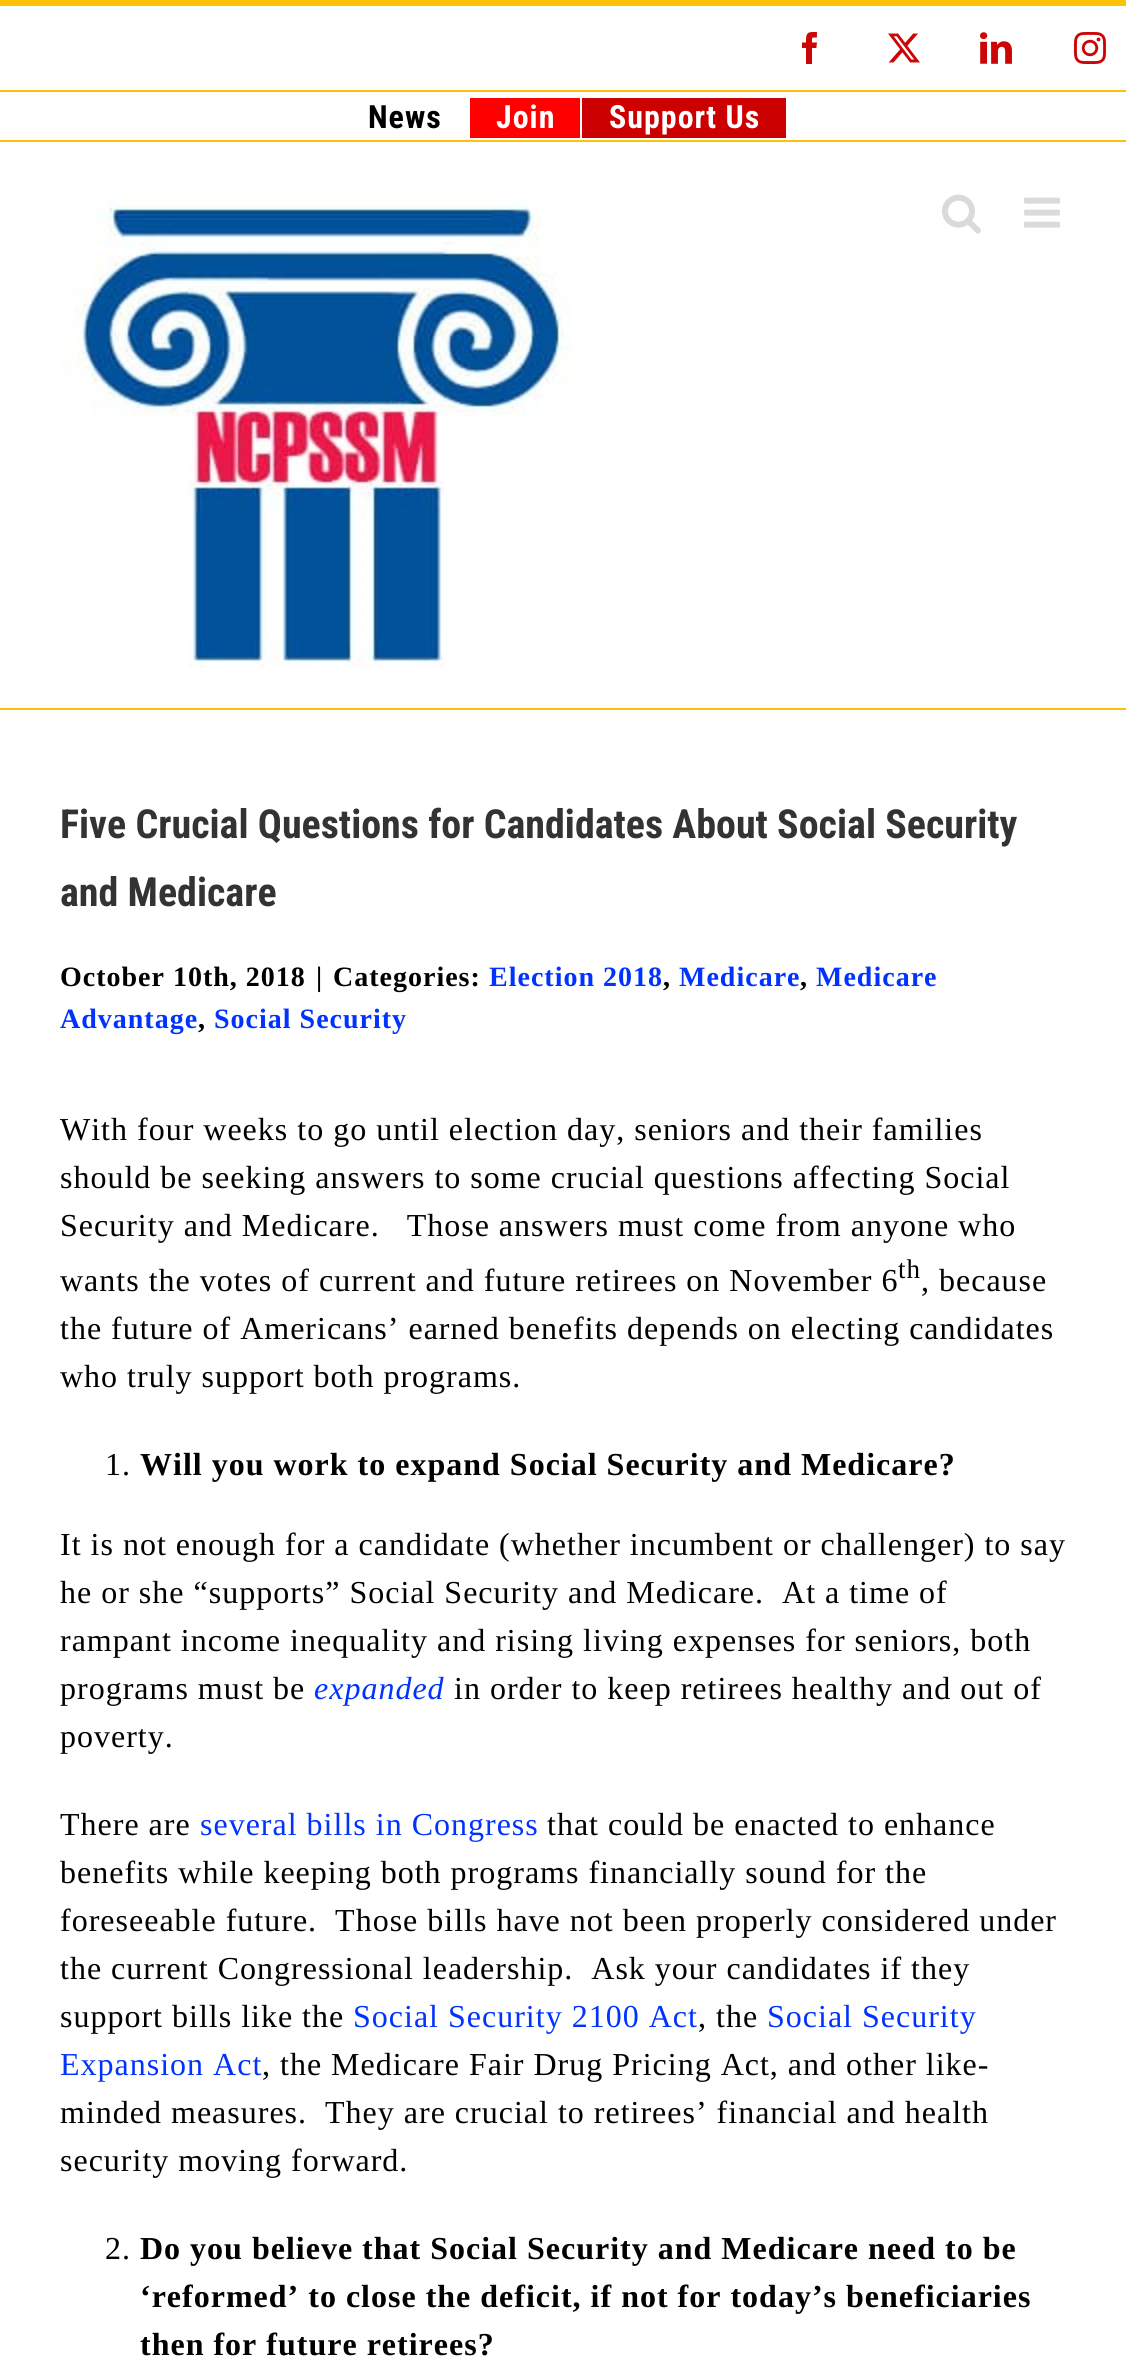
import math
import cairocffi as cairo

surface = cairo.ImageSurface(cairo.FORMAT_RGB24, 1126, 2361)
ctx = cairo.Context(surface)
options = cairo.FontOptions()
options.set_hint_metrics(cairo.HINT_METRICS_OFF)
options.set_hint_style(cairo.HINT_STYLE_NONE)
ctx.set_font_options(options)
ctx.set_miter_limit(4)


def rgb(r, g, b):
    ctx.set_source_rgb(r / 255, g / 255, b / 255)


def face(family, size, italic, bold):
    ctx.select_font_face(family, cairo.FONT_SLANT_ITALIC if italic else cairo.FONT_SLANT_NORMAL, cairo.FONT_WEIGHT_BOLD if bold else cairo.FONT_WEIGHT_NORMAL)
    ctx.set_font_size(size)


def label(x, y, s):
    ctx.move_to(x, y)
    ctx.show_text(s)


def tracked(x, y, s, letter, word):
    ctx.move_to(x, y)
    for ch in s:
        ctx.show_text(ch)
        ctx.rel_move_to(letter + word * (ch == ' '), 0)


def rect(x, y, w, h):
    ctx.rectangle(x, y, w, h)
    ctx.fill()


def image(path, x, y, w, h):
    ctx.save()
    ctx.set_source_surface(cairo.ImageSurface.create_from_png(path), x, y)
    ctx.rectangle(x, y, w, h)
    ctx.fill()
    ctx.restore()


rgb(255, 255, 255)
ctx.paint()
rgb(255, 193, 7)
rect(0, 0, 1126, 6)
rect(0, 140, 1126, 2)
rect(0, 90, 1126, 2)
image('image0.png', 802, 32, 15, 32)
image('image1.png', 888, 33, 32, 30)
image('image2.png', 980, 32, 32, 32)
image('image3.png', 1074, 32, 32, 32)
face('Roboto Condensed', 32, 0, 1)
rgb(0, 0, 0)
tracked(368, 128, 'News', 1, 0)
rgb(255, 0, 0)
rect(470, 98, 110, 40)
rgb(255, 255, 255)
tracked(496, 128, 'Join', 1, 0)
rgb(204, 0, 0)
rect(582, 98, 204, 40)
rgb(255, 255, 255)
tracked(609, 128, 'Support Us', 1, 0)
rgb(255, 193, 7)
rect(0, 708, 1126, 2)
image('image4.png', 60, 192, 512, 476)
image('image5.png', 942, 194, 39, 40)
image('image6.png', 1024, 197, 36, 31)
face('Roboto Condensed', 40, 0, 1)
rgb(51, 51, 51)
label(60, 838, 'Five Crucial Questions for Candidates About Social Security')
label(60, 906, 'and Medicare')
face('Liberation Serif', 28, 0, 1)
rgb(0, 0, 0)
tracked(60, 986, 'October 10th, 2018', 1, 0)
tracked(316, 986, '|', 1, 0)
tracked(333, 986, 'Categories:', 1, 0)
rgb(0, 51, 255)
tracked(489, 986, 'Election 2018', 1, 0)
rgb(0, 0, 0)
tracked(663, 986, ',', 1, 0)
rgb(0, 51, 255)
tracked(679, 986, 'Medicare', 1, 0)
rgb(0, 0, 0)
tracked(800, 986, ',', 1, 0)
rgb(0, 51, 255)
tracked(816, 986, 'Medicare', 1, 0)
tracked(60, 1028, 'Advantage', 1, 0)
rgb(0, 0, 0)
tracked(198, 1028, ',', 1, 0)
rgb(0, 51, 255)
tracked(214, 1028, 'Social Security', 1, 0)
face('Liberation Serif', 32, 0, 0)
rgb(0, 0, 0)
tracked(60, 1140, 'With four weeks to go until election day, seniors and their families', 1, 0)
tracked(60, 1188, 'should be seeking answers to some crucial questions affecting Social', 1, 0)
tracked(60, 1236, 'Security and Medicare.   Those answers must come from anyone who', 1, 0)
tracked(60, 1291, 'wants the votes of current and future retirees on November 6', 1, 0)
face('Liberation Serif', 27, 0, 0)
tracked(898, 1278, 'th', 1, 0)
face('Liberation Serif', 32, 0, 0)
tracked(921, 1291, ', because', 1, 0)
tracked(60, 1339, 'the future of Americans’ earned benefits depends on electing candidates', 1, 0)
tracked(60, 1387, 'who truly support both programs.', 1, 0)
tracked(105, 1475, '1.', 1, 0)
face('Liberation Serif', 32, 0, 1)
tracked(140, 1475, 'Will you work to expand Social Security and Medicare?', 1, 0)
face('Liberation Serif', 32, 0, 0)
tracked(60, 1555, 'It is not enough for a candidate (whether incumbent or challenger) to say', 1, 0)
tracked(60, 1603, 'he or she “supports” Social Security and Medicare.  At a time of', 1, 0)
tracked(60, 1651, 'rampant income inequality and rising living expenses for seniors, both', 1, 0)
tracked(60, 1699, 'programs must be', 1, 0)
face('Liberation Serif', 32, 1, 0)
rgb(0, 51, 255)
tracked(314, 1699, 'expanded', 1, 0)
face('Liberation Serif', 32, 0, 0)
rgb(0, 0, 0)
tracked(454, 1699, 'in order to keep retirees healthy and out of', 1, 0)
tracked(60, 1747, 'poverty.', 1, 0)
tracked(60, 1835, 'There are', 1, 0)
rgb(0, 51, 255)
tracked(200, 1835, 'several bills in Congress', 1, 0)
rgb(0, 0, 0)
tracked(547, 1835, 'that could be enacted to enhance', 1, 0)
tracked(60, 1883, 'benefits while keeping both programs financially sound for the', 1, 0)
tracked(60, 1931, 'foreseeable future.  Those bills have not been properly considered under', 1, 0)
tracked(60, 1979, 'the current Congressional leadership.  Ask your candidates if they', 1, 0)
tracked(60, 2027, 'support bills like the', 1, 0)
rgb(0, 51, 255)
tracked(353, 2027, 'Social Security 2100 Act', 1, 0)
rgb(0, 0, 0)
tracked(698, 2027, ', the', 1, 0)
rgb(0, 51, 255)
tracked(767, 2027, 'Social Security', 1, 0)
tracked(60, 2075, 'Expansion Act', 1, 0)
rgb(0, 0, 0)
tracked(262, 2075, ', the Medicare Fair Drug Pricing Act, and other like-', 1, 0)
tracked(60, 2123, 'minded measures.  They are crucial to retirees’ financial and health', 1, 0)
tracked(60, 2171, 'security moving forward.', 1, 0)
tracked(105, 2259, '2.', 1, 0)
face('Liberation Serif', 32, 0, 1)
tracked(140, 2259, 'Do you believe that Social Security and Medicare need to be', 1, 0)
tracked(140, 2307, '‘reformed’ to close the deficit, if not for today’s beneficiaries', 1, 0)
tracked(140, 2355, 'then for future retirees?', 1, 0)
surface.write_to_png('render.png')
